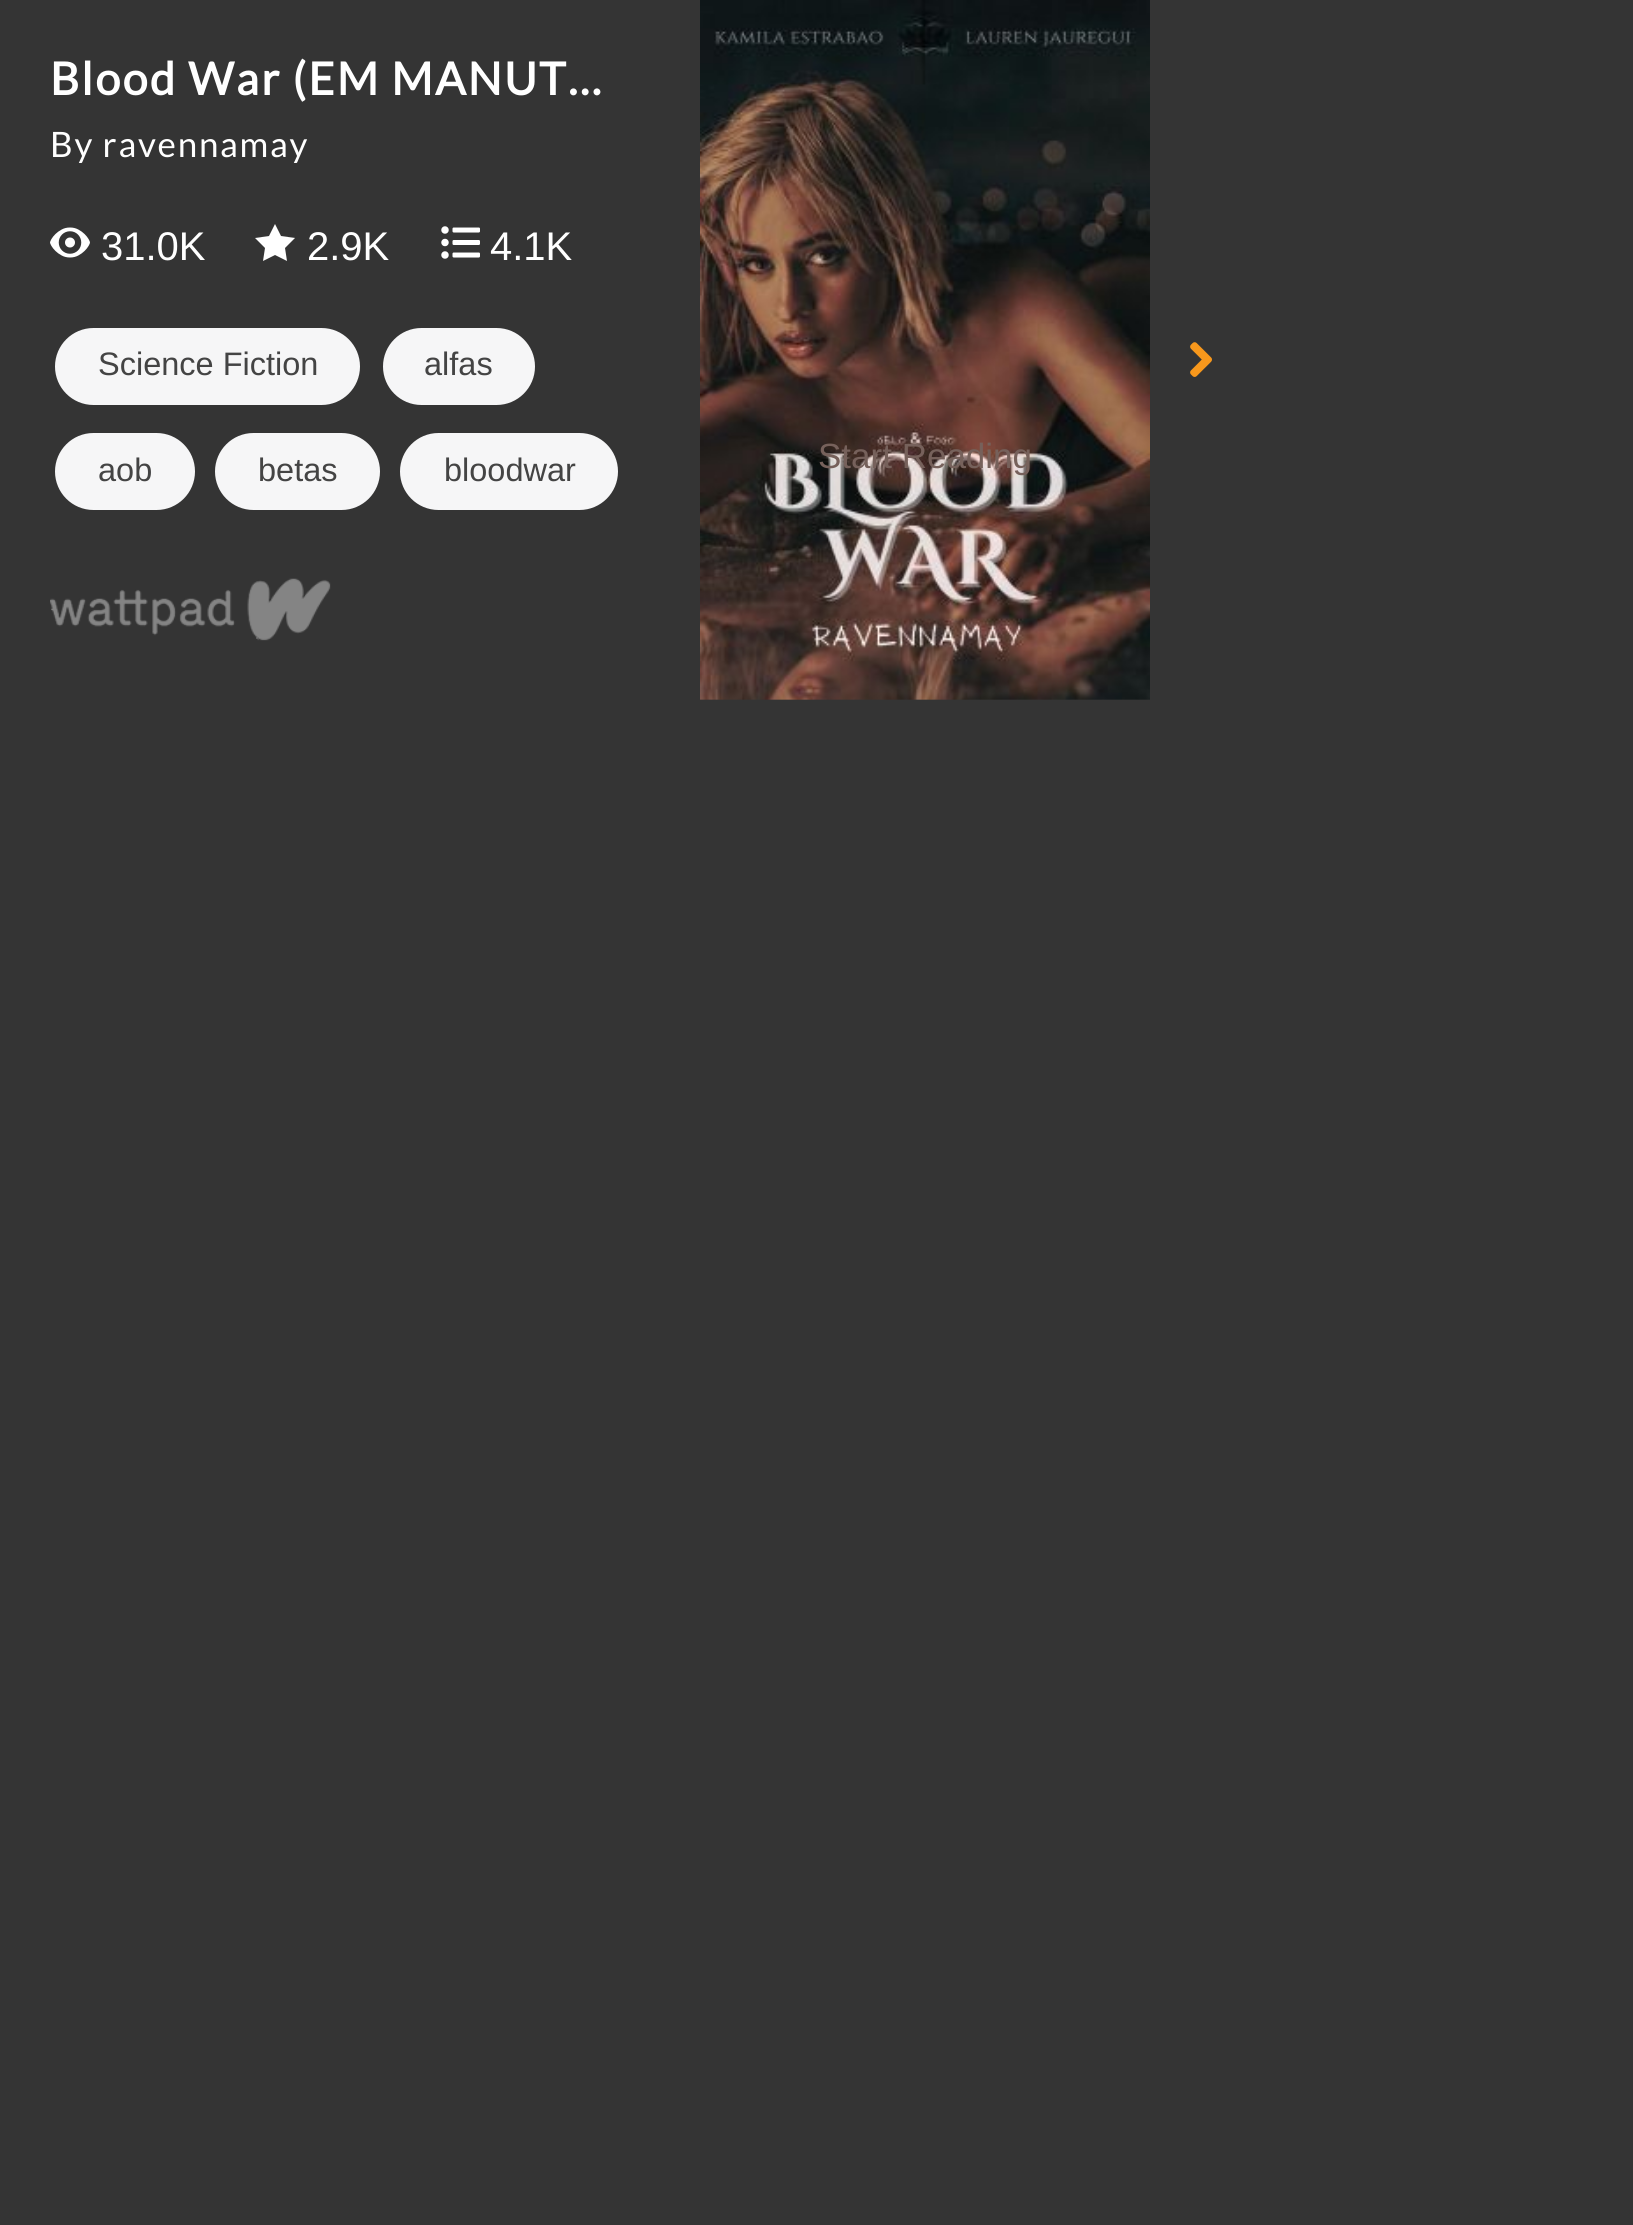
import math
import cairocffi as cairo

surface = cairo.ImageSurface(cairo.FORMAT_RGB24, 1633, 2225)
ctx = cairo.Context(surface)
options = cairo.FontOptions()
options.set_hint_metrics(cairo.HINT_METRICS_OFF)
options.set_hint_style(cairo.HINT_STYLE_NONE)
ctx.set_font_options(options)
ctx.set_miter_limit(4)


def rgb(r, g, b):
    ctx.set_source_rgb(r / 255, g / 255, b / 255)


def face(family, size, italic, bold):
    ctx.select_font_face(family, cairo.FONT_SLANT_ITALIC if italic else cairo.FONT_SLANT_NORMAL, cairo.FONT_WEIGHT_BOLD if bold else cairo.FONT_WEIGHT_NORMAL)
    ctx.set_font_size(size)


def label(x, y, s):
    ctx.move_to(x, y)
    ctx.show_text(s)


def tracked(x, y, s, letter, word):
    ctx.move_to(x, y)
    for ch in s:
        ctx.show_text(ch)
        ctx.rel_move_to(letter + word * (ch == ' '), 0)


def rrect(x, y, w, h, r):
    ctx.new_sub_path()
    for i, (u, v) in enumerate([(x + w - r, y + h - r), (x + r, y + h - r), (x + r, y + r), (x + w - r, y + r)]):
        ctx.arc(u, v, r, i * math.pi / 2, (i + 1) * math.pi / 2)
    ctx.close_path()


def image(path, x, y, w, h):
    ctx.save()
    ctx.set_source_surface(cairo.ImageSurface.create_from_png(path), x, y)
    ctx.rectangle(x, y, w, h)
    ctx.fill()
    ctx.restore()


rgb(52, 52, 52)
ctx.paint()
face('Lato', 45, 0, 1)
rgb(255, 255, 255)
tracked(50, 95, 'Blood War (EM MANUT...', 2.25, 0)
face('Lato', 35, 0, 0)
tracked(50, 157, 'By ravennamay', 1.75, 0)
image('image0.png', 50, 227, 40, 31)
face('Liberation Sans', 40, 0, 0)
label(101, 260, '31.0K')
ctx.new_path()
ctx.move_to(275, 224)
ctx.line_to(281, 236)
ctx.line_to(295, 238)
ctx.line_to(285, 248)
ctx.line_to(287, 261)
ctx.line_to(275, 255)
ctx.line_to(263, 261)
ctx.line_to(265, 248)
ctx.line_to(255, 238)
ctx.line_to(269, 236)
ctx.close_path()
ctx.fill()
label(307, 260, '2.9K')
image('image1.png', 441, 226, 39, 33)
label(490, 260, '4.1K')
rgb(246, 246, 247)
rrect(56.5, 329.5, 302, 74, 37)
ctx.fill_preserve()
ctx.set_line_width(3)
ctx.stroke()
face('Liberation Sans', 32.5, 0, 0)
rgb(68, 68, 68)
label(98, 375, 'Science Fiction')
rgb(246, 246, 247)
rrect(384.5, 329.5, 149, 74, 37)
ctx.fill_preserve()
ctx.stroke()
rgb(68, 68, 68)
label(424, 375, 'alfas')
rgb(246, 246, 247)
rrect(56.5, 434.5, 137, 74, 37)
ctx.fill_preserve()
ctx.stroke()
rgb(68, 68, 68)
label(98, 481, 'aob')
rgb(246, 246, 247)
rrect(216.5, 434.5, 162, 74, 37)
ctx.fill_preserve()
ctx.stroke()
rgb(68, 68, 68)
label(258, 481, 'betas')
rgb(246, 246, 247)
rrect(401.5, 434.5, 215, 74, 37)
ctx.fill_preserve()
ctx.stroke()
rgb(68, 68, 68)
label(444, 481, 'bloodwar')
image('image2.png', 50, 578, 281, 63)
image('image3.png', 1190, 342, 22, 35)
image('image4.png', 700, 0, 450, 700)
face('Liberation Sans', 35, 0, 0)
rgb(118, 97, 91)
label(818, 468, 'Start Reading')
surface.write_to_png('render.png')
